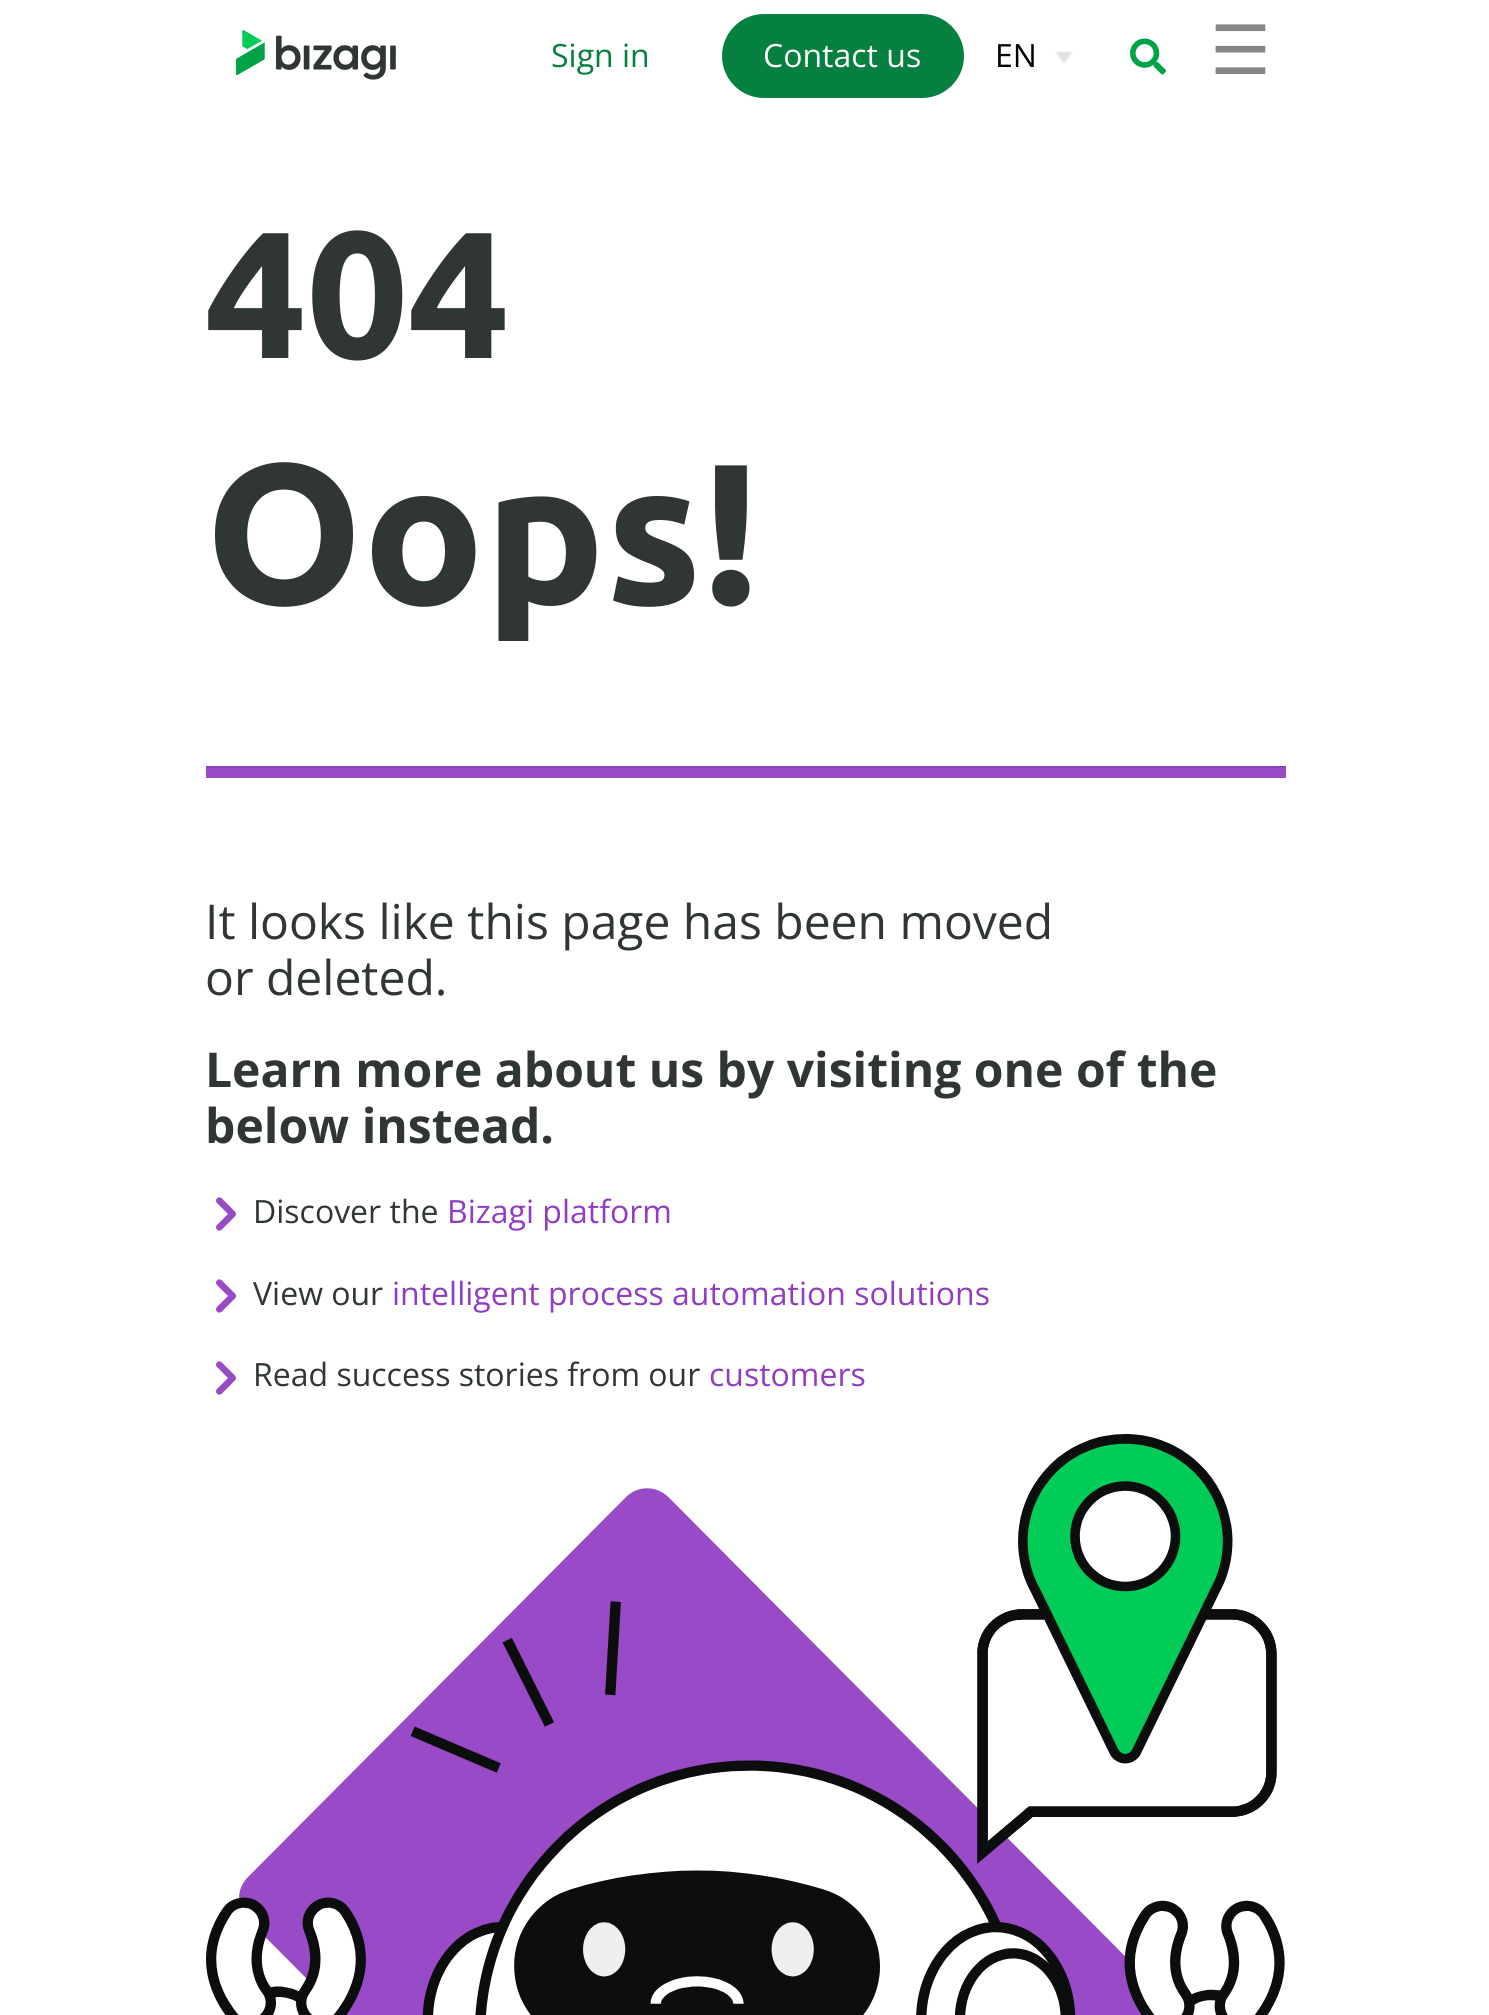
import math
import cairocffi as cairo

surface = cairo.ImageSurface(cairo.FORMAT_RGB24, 1489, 2015)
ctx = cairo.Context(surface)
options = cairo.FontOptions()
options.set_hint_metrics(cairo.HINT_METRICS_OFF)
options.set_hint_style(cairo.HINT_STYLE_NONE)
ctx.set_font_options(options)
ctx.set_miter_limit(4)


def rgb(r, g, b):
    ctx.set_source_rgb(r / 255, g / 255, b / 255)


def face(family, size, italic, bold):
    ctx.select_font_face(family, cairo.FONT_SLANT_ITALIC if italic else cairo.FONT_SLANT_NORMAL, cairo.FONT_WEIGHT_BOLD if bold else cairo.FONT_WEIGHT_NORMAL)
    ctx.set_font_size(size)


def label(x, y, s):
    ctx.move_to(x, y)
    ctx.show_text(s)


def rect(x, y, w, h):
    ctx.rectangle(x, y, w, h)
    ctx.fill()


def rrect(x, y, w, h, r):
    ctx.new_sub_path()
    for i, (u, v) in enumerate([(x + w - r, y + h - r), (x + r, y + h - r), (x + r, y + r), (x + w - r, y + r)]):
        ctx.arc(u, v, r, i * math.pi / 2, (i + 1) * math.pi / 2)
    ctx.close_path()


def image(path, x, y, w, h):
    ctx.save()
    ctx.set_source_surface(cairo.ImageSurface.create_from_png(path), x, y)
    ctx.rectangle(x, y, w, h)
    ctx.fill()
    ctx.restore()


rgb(255, 255, 255)
ctx.paint()
image('image0.png', 236, 30, 160, 50)
face('Open Sans', 32, 0, 0)
rgb(5, 128, 62)
label(551, 67, 'Sign in')
rrect(723, 15, 240, 82, 41)
ctx.fill_preserve()
ctx.stroke()
rgb(255, 255, 255)
label(763, 67, 'Contact us')
image('image1.png', 1055, 51, 18, 13)
rgb(0, 0, 0)
label(995, 67, 'EN')
image('image2.png', 1130, 38, 36, 37)
face('DejaVu Sans', 68, 0, 0)
rgb(134, 134, 134)
label(1210, 74, '☰')
face('Ubuntu Sans ExtraBold', 180, 0, 0)
rgb(48, 54, 51)
label(205, 358, '404')
face('Ubuntu Sans ExtraBold', 200, 0, 0)
label(205, 604, 'Oops!')
rgb(153, 75, 199)
rect(206, 768, 1080, 10)
rgb(138, 68, 179)
rect(206, 766, 1080, 2)
face('Open Sans', 48, 0, 0)
rgb(48, 54, 51)
label(205, 939, 'It looks like this page has been moved')
label(205, 995, 'or deleted.')
face('Open Sans', 48, 0, 1)
label(205, 1087, 'Learn more about us by visiting one of the')
label(205, 1143, 'below instead.')
image('image3.png', 216, 1197, 20, 34)
face('Open Sans', 32, 0, 0)
label(253, 1223, 'Discover the')
rgb(145, 61, 194)
label(447, 1223, 'Bizagi platform')
image('image3.png', 216, 1279, 20, 34)
rgb(48, 54, 51)
label(253, 1305, 'View our')
rgb(145, 61, 194)
label(392, 1305, 'intelligent process automation solutions')
image('image3.png', 216, 1361, 20, 34)
rgb(48, 54, 51)
label(253, 1386, 'Read success stories from our')
rgb(145, 61, 194)
label(709, 1386, 'customers')
image('image4.png', 206, 1434, 1079, 581)
surface.write_to_png('render.png')
